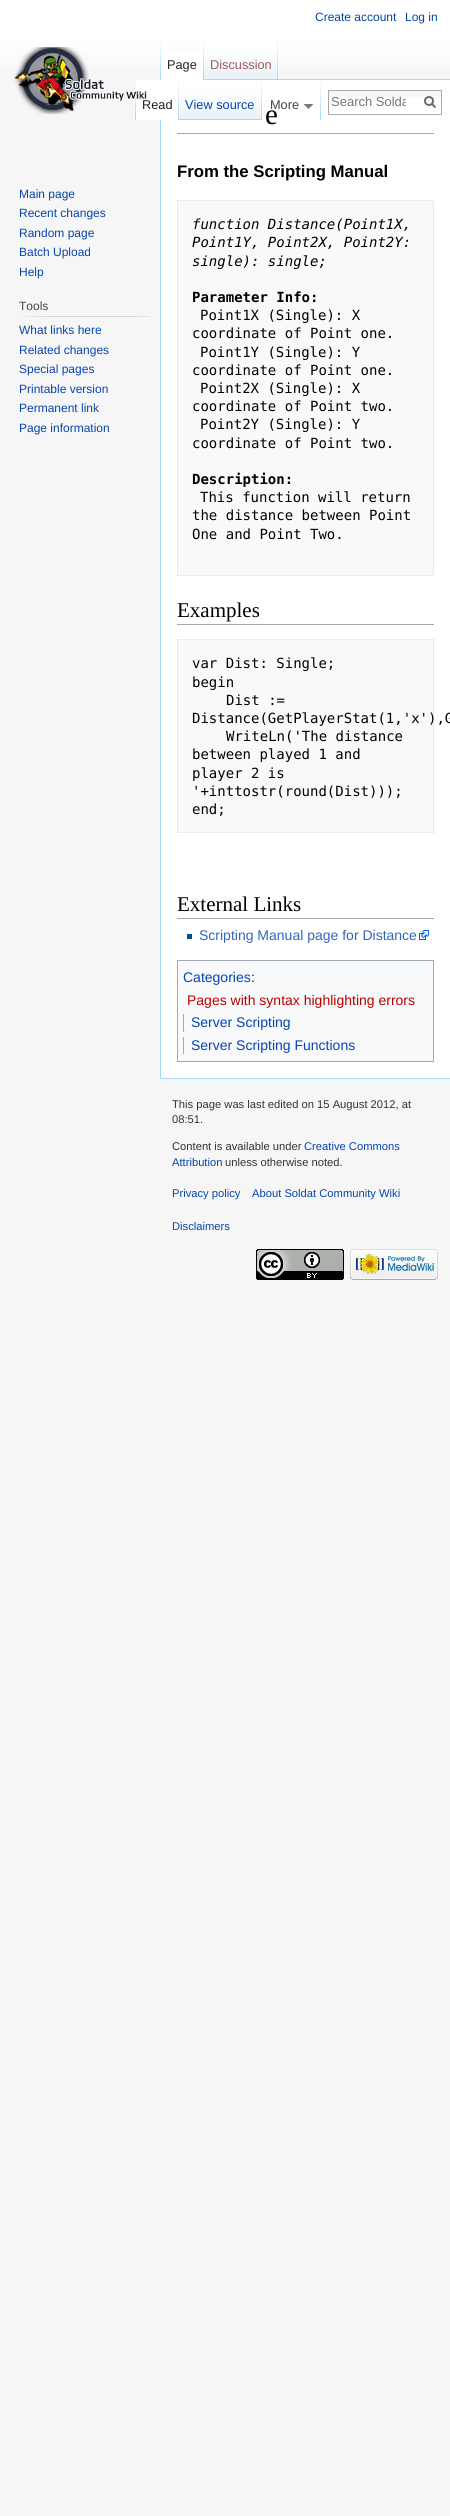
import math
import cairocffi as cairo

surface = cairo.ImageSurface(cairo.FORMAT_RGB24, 450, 2516)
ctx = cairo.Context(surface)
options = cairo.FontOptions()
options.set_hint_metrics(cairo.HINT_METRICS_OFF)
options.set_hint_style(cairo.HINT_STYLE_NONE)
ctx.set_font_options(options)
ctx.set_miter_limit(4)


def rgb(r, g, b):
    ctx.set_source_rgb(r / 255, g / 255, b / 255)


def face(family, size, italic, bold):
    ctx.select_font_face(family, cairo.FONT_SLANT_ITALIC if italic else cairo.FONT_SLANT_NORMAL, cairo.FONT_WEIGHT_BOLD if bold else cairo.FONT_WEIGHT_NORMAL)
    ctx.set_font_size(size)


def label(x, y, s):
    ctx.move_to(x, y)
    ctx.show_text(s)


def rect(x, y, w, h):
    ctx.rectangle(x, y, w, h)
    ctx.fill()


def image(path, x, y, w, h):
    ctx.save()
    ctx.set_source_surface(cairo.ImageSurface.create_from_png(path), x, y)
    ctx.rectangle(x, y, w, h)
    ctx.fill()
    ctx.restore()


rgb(246, 246, 246)
ctx.paint()
gradient = cairo.LinearGradient(225, 0, 225, 80)
gradient.add_color_stop_rgba(0.5, 1, 1, 1, 1)
gradient.add_color_stop_rgba(1, 0.965, 0.965, 0.965, 1)
ctx.set_source(gradient)
rect(0, 0, 450, 69)
face('Liberation Sans', 12, 0, 0)
rgb(6, 69, 173)
label(315, 21, 'Create account')
label(405, 21, 'Log in')
image('image0.png', 160, 40, 1, 39)
rgb(255, 255, 255)
rect(161, 51, 42, 29)
image('image1.png', 203, 40, 1, 40)
face('Liberation Sans', 12.75, 0, 0)
rgb(34, 34, 34)
label(167, 69, 'Page')
image('image2.png', 204, 40, 74, 40)
image('image0.png', 277, 40, 1, 39)
rgb(165, 88, 88)
label(210, 69, 'Discussion')
image('image1.png', 135, 80, 1, 40)
rgb(167, 215, 249)
rect(160, 1078, 290, 1)
rect(160, 79, 1, 1000)
rgb(255, 255, 255)
rect(136, 80, 25, 40)
rect(161, 80, 289, 998)
image('image1.png', 178, 80, 1, 40)
rgb(34, 34, 34)
label(142, 109, 'Read')
image('image3.png', 179, 80, 83, 40)
image('image0.png', 261, 80, 1, 39)
rgb(6, 69, 173)
label(185, 109, 'View source')
image('image1.png', 320, 80, 1, 40)
rgb(121, 121, 121)
ctx.new_path()
ctx.move_to(313.5, 104)
ctx.line_to(308.5, 109)
ctx.line_to(303.5, 104)
ctx.close_path()
ctx.fill()
rgb(68, 68, 68)
label(270, 109, 'More')
image('image4.png', 329, 91, 112, 8)
ctx.rectangle(328.5, 90.5, 113, 24)
rgb(170, 170, 170)
ctx.set_line_width(1)
ctx.stroke()
ctx.save()
ctx.rectangle(331, 94, 75, 15)
ctx.clip()
face('Liberation Sans', 13, 0, 0)
rgb(114, 119, 125)
label(331, 106, 'Search Solda')
ctx.restore()
ctx.new_path()
ctx.move_to(435.5, 107.5)
ctx.line_to(431.5, 103.5)
rgb(108, 108, 108)
ctx.set_line_width(2)
ctx.stroke()
ctx.arc(429, 101, 4, 0, 2 * math.pi)
ctx.stroke()
image('image5.png', 14, 47, 133, 67)
face('Liberation Sans', 12, 0, 0)
rgb(6, 69, 173)
label(19, 198, 'Main page')
label(19, 217, 'Recent changes')
label(19, 237, 'Random page')
label(19, 256, 'Batch Upload')
label(19, 276, 'Help')
rgb(68, 68, 68)
label(19, 310, 'Tools')
image('image6.png', 22, 316, 128, 1)
rgb(6, 69, 173)
label(19, 334, 'What links here')
label(19, 354, 'Related changes')
label(19, 373, 'Special pages')
label(19, 393, 'Printable version')
label(19, 412, 'Permanent link')
label(19, 432, 'Page information')
rgb(167, 215, 249)
rect(278, 79, 172, 1)
rgb(162, 169, 177)
rect(177, 133, 257, 1)
face('Liberation Serif', 29, 0, 0)
rgb(0, 0, 0)
label(265, 124, 'e')
face('Liberation Sans', 16.75, 0, 1)
label(177, 177, 'From the Scripting Manual')
rgb(248, 249, 250)
ctx.rectangle(177.5, 200.5, 256, 375)
ctx.fill_preserve()
rgb(234, 236, 240)
ctx.set_line_width(1)
ctx.stroke()
face('DejaVu Sans Mono', 14, 1, 0)
rgb(0, 0, 0)
label(192, 229, 'function Distance(Point1X,')
label(192, 247, 'Point1Y, Point2X, Point2Y:')
label(192, 266, 'single): single;')
face('DejaVu Sans Mono', 14, 0, 1)
label(192, 302, 'Parameter Info:')
face('DejaVu Sans Mono', 14, 0, 0)
label(200, 320, 'Point1X (Single): X')
label(192, 338, 'coordinate of Point one.')
label(200, 357, 'Point1Y (Single): Y')
label(192, 375, 'coordinate of Point one.')
label(200, 393, 'Point2X (Single): X')
label(192, 411, 'coordinate of Point two.')
label(200, 429, 'Point2Y (Single): Y')
label(192, 448, 'coordinate of Point two.')
face('DejaVu Sans Mono', 14, 0, 1)
label(192, 484, 'Description:')
face('DejaVu Sans Mono', 14, 0, 0)
label(200, 502, 'This function will return')
label(192, 520, 'the distance between Point')
label(192, 539, 'One and Point Two.')
rgb(162, 169, 177)
rect(177, 624, 257, 1)
face('Liberation Serif', 21, 0, 0)
rgb(0, 0, 0)
label(177, 617, 'Examples')
rgb(248, 249, 250)
ctx.rectangle(177.5, 639.5, 256, 193)
ctx.fill_preserve()
rgb(234, 236, 240)
ctx.stroke()
face('DejaVu Sans Mono', 14, 0, 0)
rgb(0, 0, 0)
label(192, 668, 'var Dist: Single;')
label(192, 687, 'begin')
label(226, 705, 'Dist :=')
label(192, 723, 'Distance(GetPlayerStat(1,\'x\'),G')
label(226, 741, 'WriteLn(\'The distance')
label(192, 759, 'between played 1 and')
label(192, 778, 'player 2 is')
label(192, 796, '\'+inttostr(round(Dist)));')
label(192, 814, 'end;')
rgb(162, 169, 177)
rect(177, 918, 257, 1)
face('Liberation Serif', 21, 0, 0)
rgb(0, 0, 0)
label(177, 911, 'External Links')
rgb(0, 82, 140)
rect(187, 934, 5, 5)
face('Liberation Sans', 14, 0, 0)
rgb(51, 102, 187)
label(199, 940, 'Scripting Manual page for Distance')
image('image7.png', 419, 930, 10, 10)
rgb(248, 249, 250)
ctx.rectangle(177.5, 960.5, 256, 101)
ctx.fill_preserve()
rgb(162, 169, 177)
ctx.stroke()
rgb(6, 69, 173)
label(183, 982, 'Categories')
rgb(34, 34, 34)
label(251, 982, ':')
rgb(186, 0, 0)
label(187, 1005, 'Pages with syntax highlighting errors')
rgb(162, 169, 177)
rect(183, 1014, 1, 18)
rgb(6, 69, 173)
label(191, 1027, 'Server Scripting')
rgb(162, 169, 177)
rect(183, 1037, 1, 17)
rgb(6, 69, 173)
label(191, 1050, 'Server Scripting Functions')
face('Liberation Sans', 11.2, 0, 0)
rgb(51, 51, 51)
label(172, 1108, 'This page was last edited on 15 August 2012, at')
label(172, 1123, '08:51.')
label(172, 1150, 'Content is available under')
rgb(6, 69, 173)
label(304, 1150, 'Creative Commons')
label(172, 1166, 'Attribution')
rgb(51, 51, 51)
label(225, 1166, 'unless otherwise noted.')
rgb(6, 69, 173)
label(172, 1197, 'Privacy policy')
label(252, 1197, 'About Soldat Community Wiki')
label(172, 1230, 'Disclaimers')
image('image8.png', 256, 1249, 88, 31)
image('image9.png', 350, 1249, 88, 31)
surface.write_to_png('render.png')
